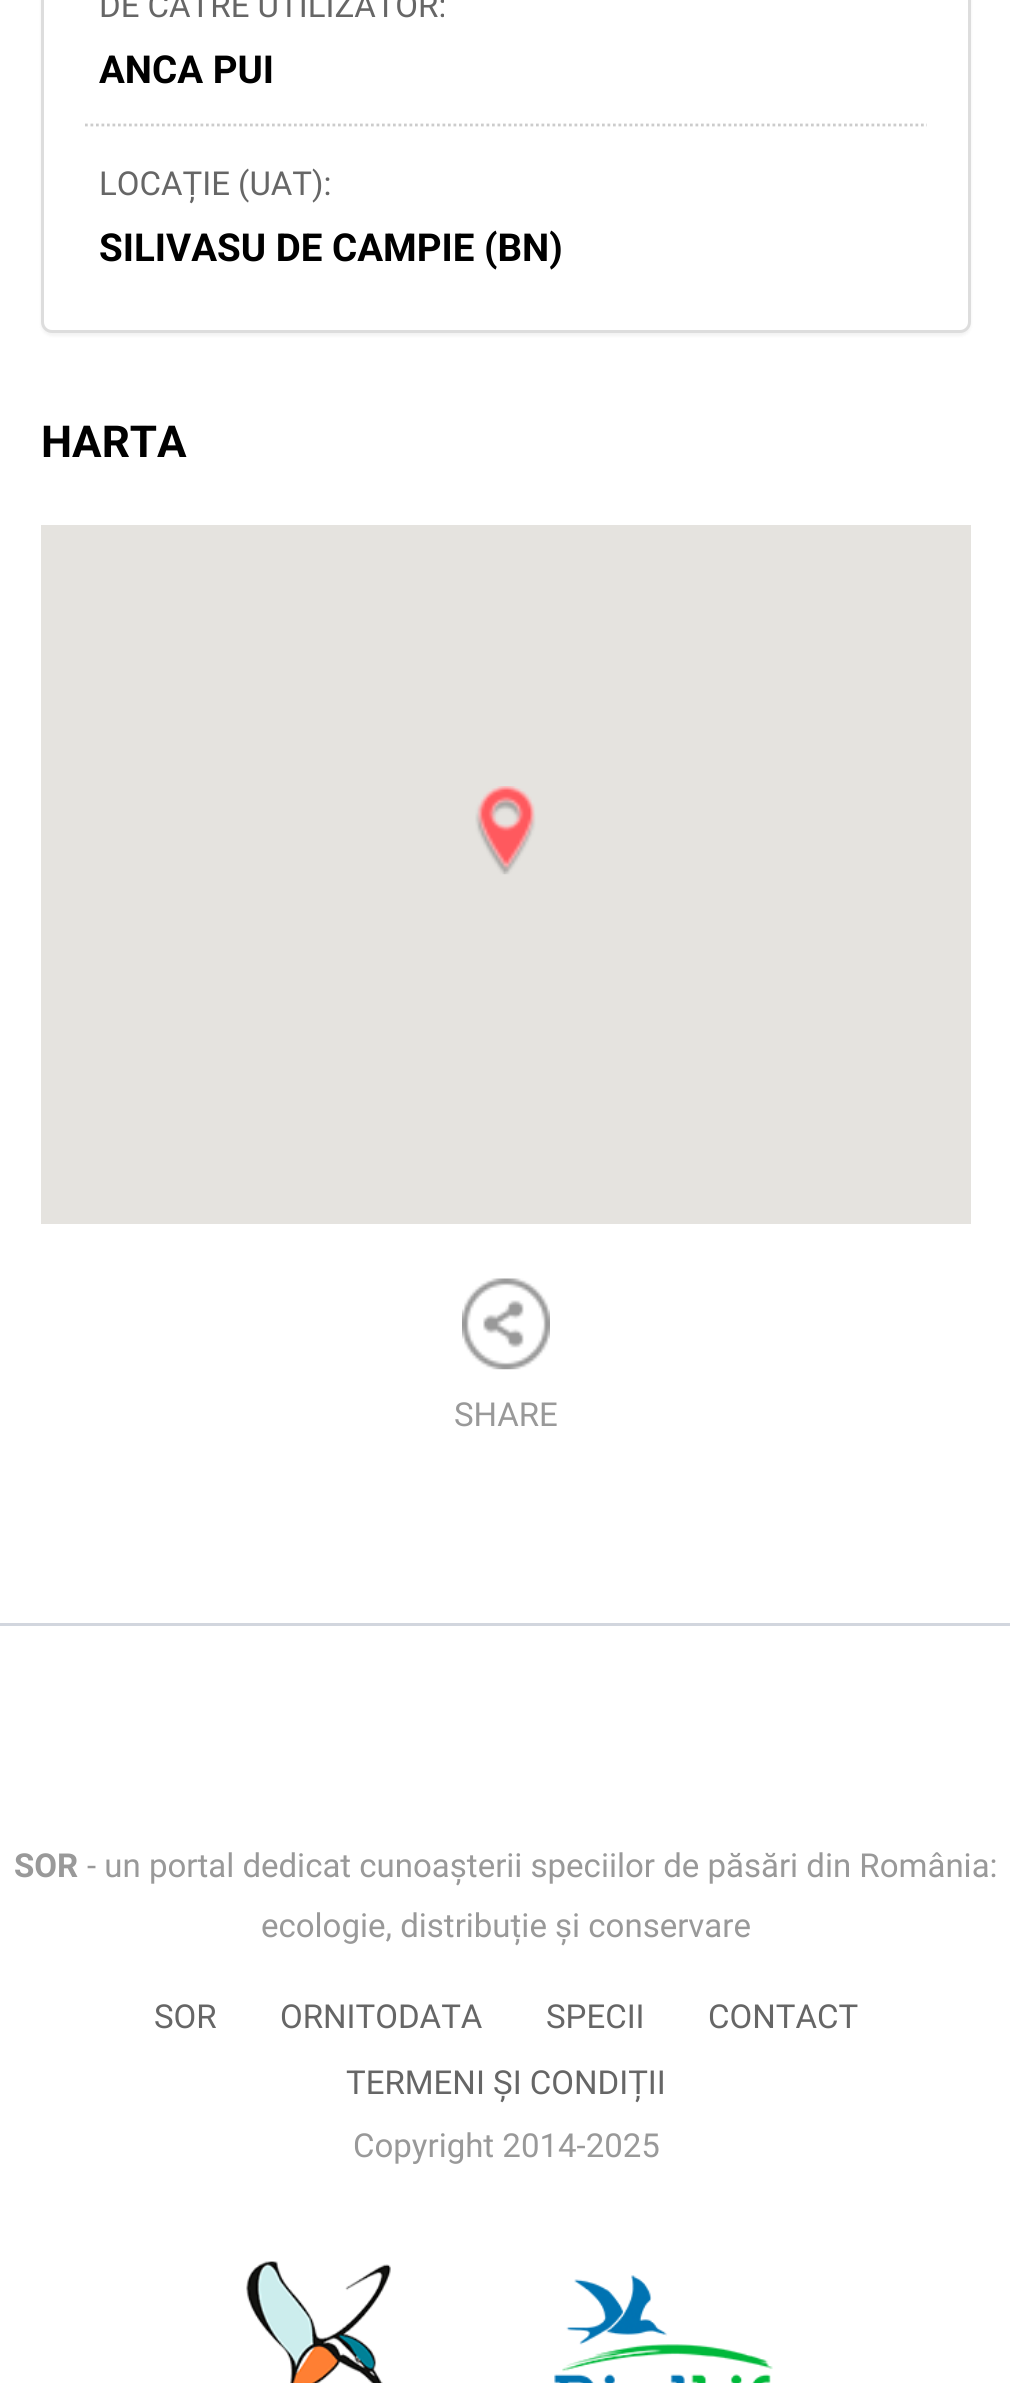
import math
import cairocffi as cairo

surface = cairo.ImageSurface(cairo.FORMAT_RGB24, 1010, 2383)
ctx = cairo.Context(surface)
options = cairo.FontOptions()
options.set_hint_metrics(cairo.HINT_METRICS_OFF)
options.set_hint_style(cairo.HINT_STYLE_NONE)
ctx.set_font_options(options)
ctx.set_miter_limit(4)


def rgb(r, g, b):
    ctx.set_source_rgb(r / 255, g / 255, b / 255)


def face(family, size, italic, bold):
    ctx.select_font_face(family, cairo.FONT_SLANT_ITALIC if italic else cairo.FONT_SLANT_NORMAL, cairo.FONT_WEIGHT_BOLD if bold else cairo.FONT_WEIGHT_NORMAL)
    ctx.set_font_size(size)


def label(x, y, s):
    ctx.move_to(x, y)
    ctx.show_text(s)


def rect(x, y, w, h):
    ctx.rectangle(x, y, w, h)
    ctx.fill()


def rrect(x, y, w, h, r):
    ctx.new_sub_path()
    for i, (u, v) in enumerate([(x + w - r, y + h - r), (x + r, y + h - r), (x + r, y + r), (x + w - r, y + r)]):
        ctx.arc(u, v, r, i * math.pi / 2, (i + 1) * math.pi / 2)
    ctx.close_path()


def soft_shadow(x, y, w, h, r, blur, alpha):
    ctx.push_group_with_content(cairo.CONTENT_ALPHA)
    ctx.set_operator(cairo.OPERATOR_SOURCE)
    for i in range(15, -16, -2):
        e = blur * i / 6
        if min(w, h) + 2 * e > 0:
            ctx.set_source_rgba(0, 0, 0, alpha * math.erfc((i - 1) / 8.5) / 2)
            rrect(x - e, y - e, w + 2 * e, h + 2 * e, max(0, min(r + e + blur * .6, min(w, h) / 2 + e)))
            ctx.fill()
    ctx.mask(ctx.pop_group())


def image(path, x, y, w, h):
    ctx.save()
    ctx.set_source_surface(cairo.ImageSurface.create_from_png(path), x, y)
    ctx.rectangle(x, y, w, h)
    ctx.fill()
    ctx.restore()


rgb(255, 255, 255)
ctx.paint()
rgb(0, 0, 0)
soft_shadow(41, -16, 930, 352, 11, 1.5, 0.05)
rgb(255, 255, 255)
rrect(42.5, -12.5, 927, 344, 9.5)
ctx.fill_preserve()
rgb(221, 221, 221)
ctx.set_line_width(3)
ctx.stroke()
ctx.new_path()
ctx.move_to(85, 125)
ctx.line_to(927, 125)
rgb(204, 204, 204)
ctx.set_line_width(2.8)
ctx.set_dash([2.75, 2.75])
ctx.stroke()
face('Roboto', 33, 0, 0)
rgb(102, 102, 102)
label(99, 17, 'DE CĂTRE UTILIZATOR:')
face('Roboto', 38.5, 0, 1)
rgb(0, 0, 0)
label(99, 83, 'ANCA PUI')
face('Roboto', 33, 0, 0)
rgb(102, 102, 102)
label(99, 195, 'LOCAȚIE (UAT):')
face('Roboto', 38.5, 0, 1)
rgb(0, 0, 0)
label(99, 261, 'SILIVASU DE CAMPIE (BN)')
face('Roboto', 44, 0, 1)
label(41, 457, 'HARTA')
rgb(229, 227, 223)
rect(41, 525, 930, 699)
image('image0.png', 475, 786, 61, 89)
image('image1.png', 462, 1278, 88, 92)
face('Roboto', 33, 0, 0)
rgb(153, 153, 153)
label(454, 1426, 'SHARE')
rgb(210, 214, 222)
rect(0, 1623, 1010, 3)
face('Roboto', 33, 0, 1)
rgb(153, 153, 153)
label(14, 1877, 'SOR')
face('Roboto', 33, 0, 0)
label(87, 1877, '- un portal dedicat cunoașterii speciilor de păsări din România:')
label(261, 1937, 'ecologie, distribuție și conservare')
rgb(102, 102, 102)
label(154, 2028, 'SOR')
label(280, 2028, 'ORNITODATA')
label(546, 2028, 'SPECII')
label(708, 2028, 'CONTACT')
label(346, 2094, 'TERMENI ȘI CONDIȚII')
rgb(153, 153, 153)
label(353, 2157, 'Copyright 2014-2025')
image('image2.png', 246, 2261, 145, 122)
image('image3.png', 554, 2275, 219, 108)
surface.write_to_png('render.png')
